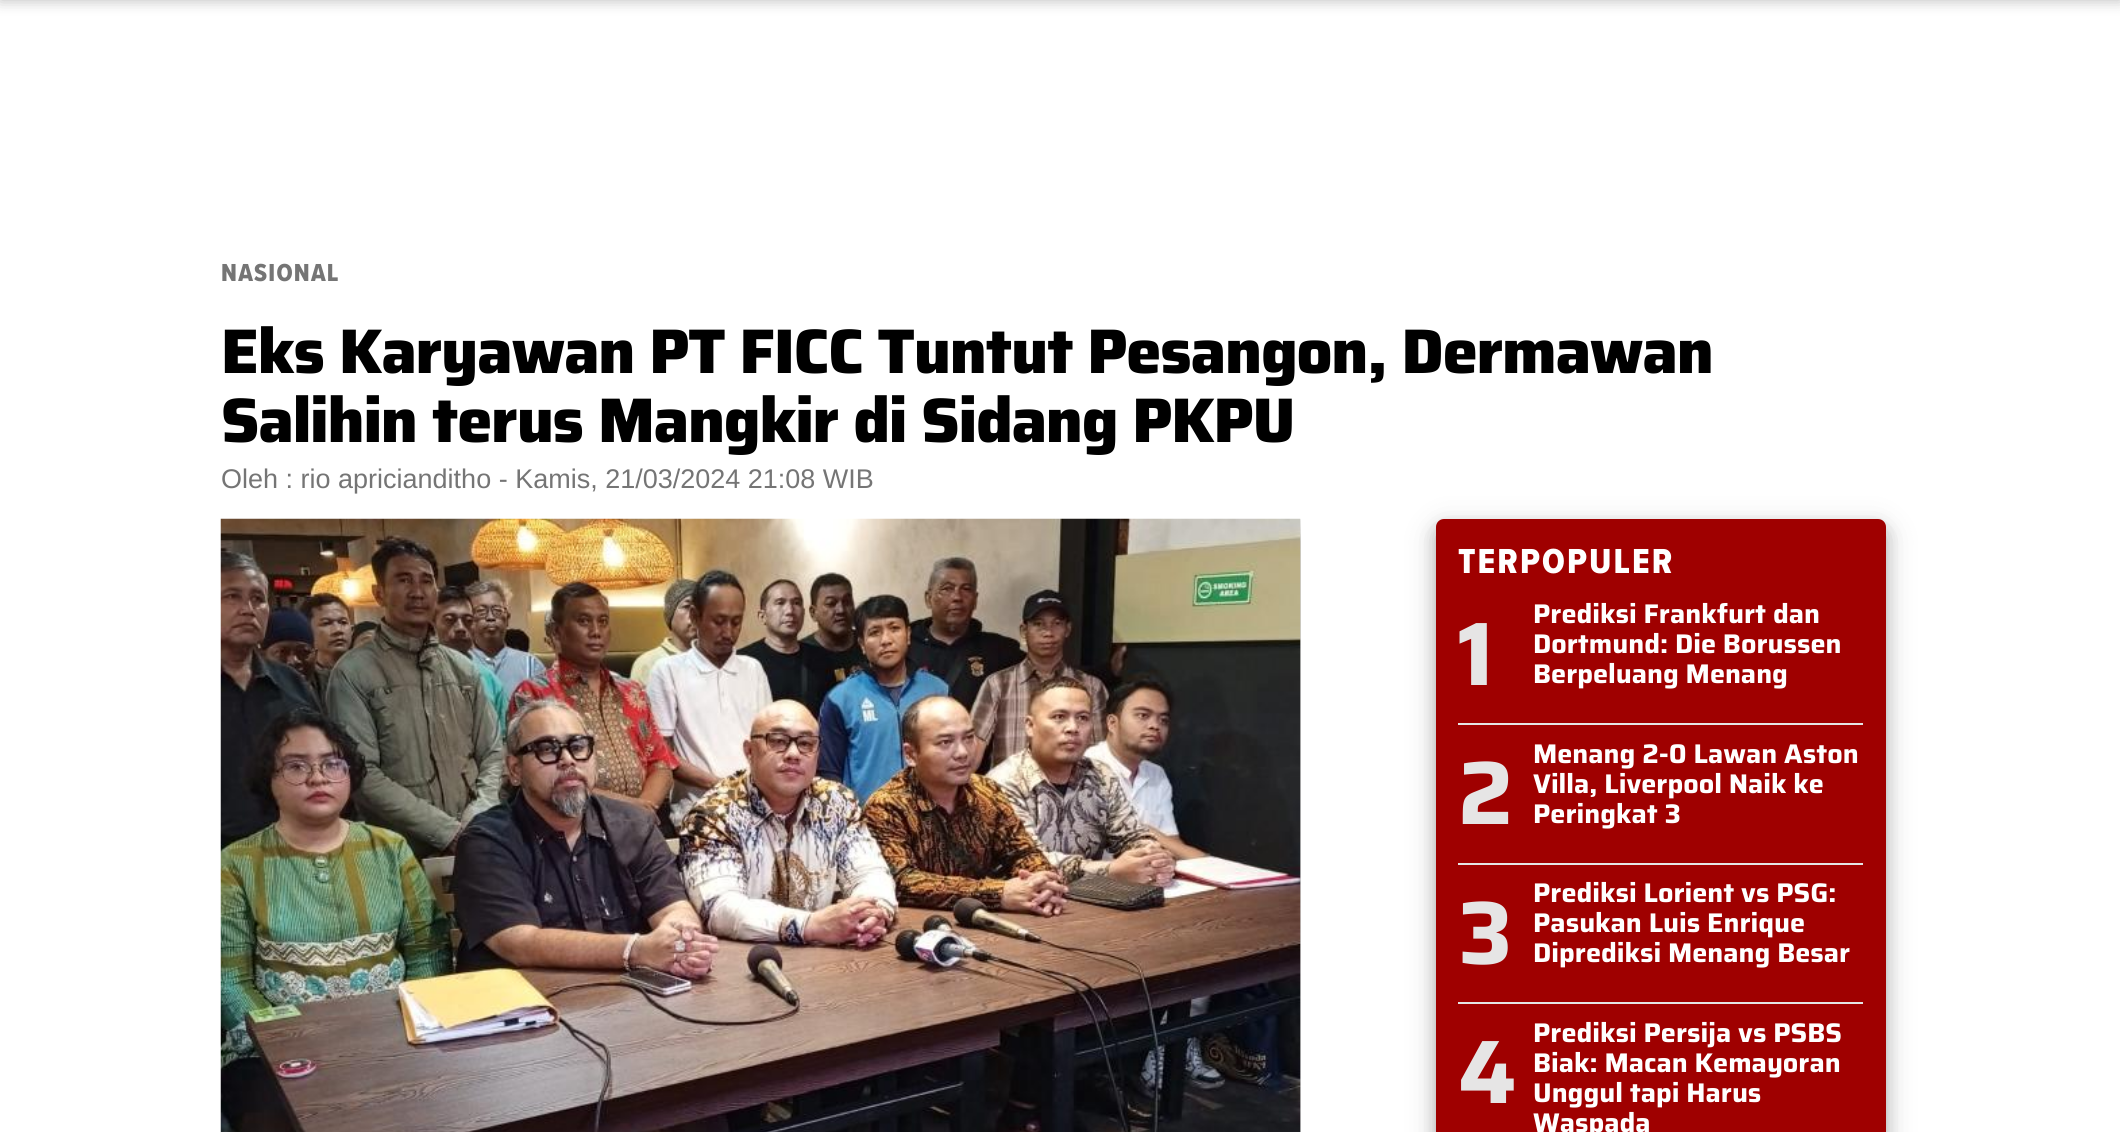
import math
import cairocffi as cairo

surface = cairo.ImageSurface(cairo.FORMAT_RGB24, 2120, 1132)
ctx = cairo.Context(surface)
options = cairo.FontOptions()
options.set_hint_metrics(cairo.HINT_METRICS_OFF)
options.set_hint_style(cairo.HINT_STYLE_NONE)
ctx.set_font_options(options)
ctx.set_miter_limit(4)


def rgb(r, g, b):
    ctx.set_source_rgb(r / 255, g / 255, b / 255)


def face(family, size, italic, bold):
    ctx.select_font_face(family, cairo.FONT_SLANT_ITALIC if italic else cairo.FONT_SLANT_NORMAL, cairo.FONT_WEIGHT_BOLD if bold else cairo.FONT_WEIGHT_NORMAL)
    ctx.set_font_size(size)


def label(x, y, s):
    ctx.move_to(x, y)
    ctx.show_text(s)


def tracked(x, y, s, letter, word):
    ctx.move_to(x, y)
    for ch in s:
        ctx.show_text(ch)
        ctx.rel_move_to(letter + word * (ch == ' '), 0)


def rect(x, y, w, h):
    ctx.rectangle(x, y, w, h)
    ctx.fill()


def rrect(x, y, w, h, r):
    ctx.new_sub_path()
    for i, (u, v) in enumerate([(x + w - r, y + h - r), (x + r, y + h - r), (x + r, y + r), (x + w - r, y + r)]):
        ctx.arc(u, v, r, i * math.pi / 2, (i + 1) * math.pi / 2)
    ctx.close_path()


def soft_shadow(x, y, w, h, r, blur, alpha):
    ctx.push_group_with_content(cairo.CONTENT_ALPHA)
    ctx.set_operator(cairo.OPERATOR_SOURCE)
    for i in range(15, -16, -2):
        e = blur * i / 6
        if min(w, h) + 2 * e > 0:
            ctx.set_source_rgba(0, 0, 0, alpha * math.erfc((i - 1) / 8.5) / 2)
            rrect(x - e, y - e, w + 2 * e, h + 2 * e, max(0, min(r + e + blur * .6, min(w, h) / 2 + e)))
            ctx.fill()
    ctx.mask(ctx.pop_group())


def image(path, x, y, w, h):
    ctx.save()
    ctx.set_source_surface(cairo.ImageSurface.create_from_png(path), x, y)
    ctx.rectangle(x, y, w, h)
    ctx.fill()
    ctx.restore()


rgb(255, 255, 255)
ctx.paint()
rgb(0, 0, 0)
soft_shadow(0, -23, 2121, 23, 0, 7.5, 0.28)
face('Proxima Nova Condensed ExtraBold', 25.5, 0, 0)
rgb(117, 117, 117)
tracked(221, 281, 'NASIONAL', 1.25, 0)
face('Saira ExtraBold', 63, 0, 0)
rgb(0, 0, 0)
tracked(221, 373, 'Eks Karyawan PT FICC Tuntut Pesangon, Dermawan', -1.25, 0)
tracked(221, 442, 'Salihin terus Mangkir di Sidang PKPU', -1.25, 0)
face('Liberation Sans', 27, 0, 0)
rgb(117, 117, 117)
label(221, 488, 'Oleh : rio apricianditho - Kamis, 21/03/2024 21:08 WIB')
ctx.save()
ctx.rectangle(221, 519, 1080, 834)
ctx.clip()
rgb(0, 0, 0)
soft_shadow(221, 528, 1080, 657, 8, 15, 0.19)
soft_shadow(221, 534, 1080, 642, 8, 12, 0.2)
ctx.restore()
image('image0.png', 220, 518, 1081, 614)
rgb(0, 0, 0)
soft_shadow(1436, 528, 450, 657, 8, 15, 0.19)
soft_shadow(1436, 527, 450, 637, 8, 8, 0.2)
rgb(159, 0, 0)
rrect(1436, 519, 450, 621, 8)
ctx.fill()
face('Proxima Nova Condensed ExtraBold', 36, 0, 0)
rgb(255, 255, 255)
tracked(1458, 573, 'TERPOPULER', 2.1, 0)
rgb(229, 229, 229)
rect(1458, 723, 405, 2)
face('Saira', 90, 0, 1)
rgb(230, 229, 229)
label(1458, 685, '1')
face('Saira', 27, 0, 1)
rgb(255, 255, 255)
label(1533, 623, 'Prediksi Frankfurt dan')
label(1533, 653, 'Dortmund: Die Borussen')
label(1533, 683, 'Berpeluang Menang')
rgb(229, 229, 229)
rect(1458, 863, 405, 2)
face('Saira', 90, 0, 1)
rgb(230, 229, 229)
label(1458, 824, '2')
face('Saira', 27, 0, 1)
rgb(255, 255, 255)
label(1533, 763, 'Menang 2-0 Lawan Aston')
label(1533, 793, 'Villa, Liverpool Naik ke')
label(1533, 823, 'Peringkat 3')
rgb(229, 229, 229)
rect(1458, 1002, 405, 2)
face('Saira', 90, 0, 1)
rgb(230, 229, 229)
label(1458, 964, '3')
face('Saira', 27, 0, 1)
rgb(255, 255, 255)
label(1533, 902, 'Prediksi Lorient vs PSG:')
label(1533, 932, 'Pasukan Luis Enrique')
label(1533, 962, 'Diprediksi Menang Besar')
face('Saira', 90, 0, 1)
rgb(230, 229, 229)
label(1458, 1103, '4')
face('Saira', 27, 0, 1)
rgb(255, 255, 255)
label(1533, 1042, 'Prediksi Persija vs PSBS')
label(1533, 1072, 'Biak: Macan Kemayoran')
label(1533, 1102, 'Unggul tapi Harus')
label(1533, 1132, 'Waspada')
surface.write_to_png('render.png')
